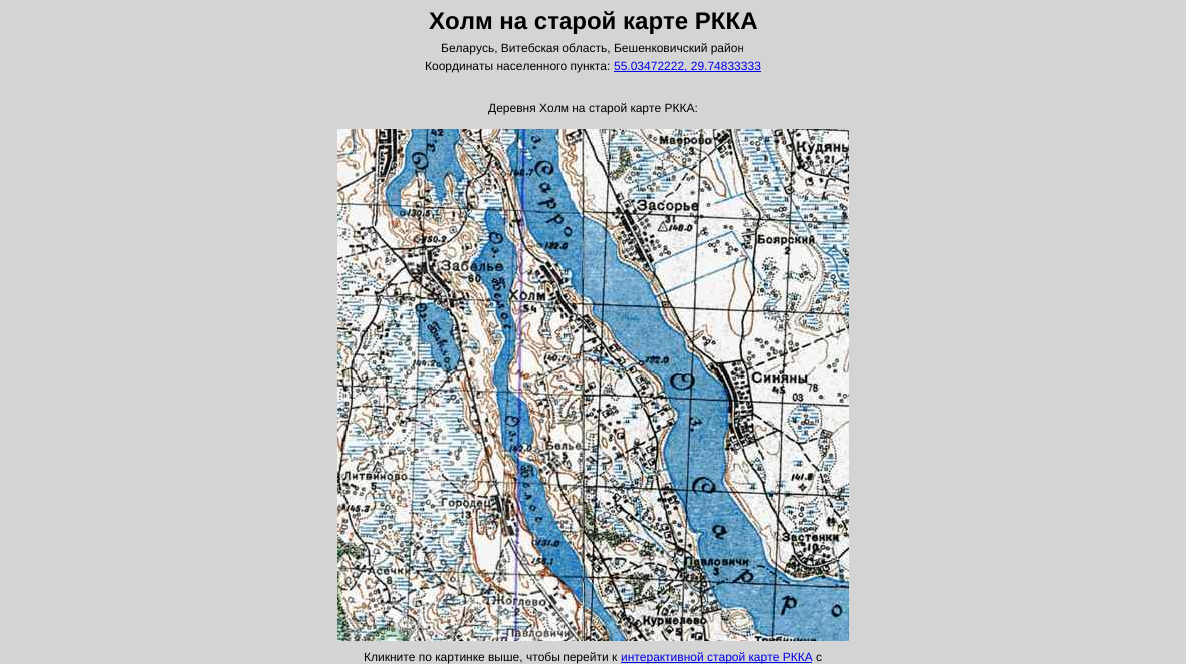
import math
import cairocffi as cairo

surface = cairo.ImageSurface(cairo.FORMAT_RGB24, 1186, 664)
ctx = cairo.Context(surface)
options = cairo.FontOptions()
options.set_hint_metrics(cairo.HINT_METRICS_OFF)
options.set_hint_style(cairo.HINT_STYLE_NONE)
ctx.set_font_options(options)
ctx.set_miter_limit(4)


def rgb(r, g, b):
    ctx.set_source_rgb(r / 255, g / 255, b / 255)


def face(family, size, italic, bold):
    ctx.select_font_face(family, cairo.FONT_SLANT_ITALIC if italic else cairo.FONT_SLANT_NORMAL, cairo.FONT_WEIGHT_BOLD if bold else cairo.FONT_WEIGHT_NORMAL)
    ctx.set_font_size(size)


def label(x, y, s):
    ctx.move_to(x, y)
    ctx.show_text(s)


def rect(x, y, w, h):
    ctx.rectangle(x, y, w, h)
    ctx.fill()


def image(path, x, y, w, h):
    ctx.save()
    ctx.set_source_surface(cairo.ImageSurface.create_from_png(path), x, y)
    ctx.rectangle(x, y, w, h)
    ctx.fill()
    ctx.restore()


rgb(212, 212, 212)
ctx.paint()
face('Liberation Sans', 24, 0, 1)
rgb(0, 0, 0)
label(429, 29, 'Холм на старой карте РККА')
face('Liberation Sans', 12, 0, 0)
label(441, 52, 'Беларусь, Витебская область, Бешенковичский район')
label(425, 70, 'Координаты населенного пункта:')
rgb(0, 0, 238)
rect(614, 71, 147, 1)
label(614, 70, '55.03472222, 29.74833333')
rgb(0, 0, 0)
label(488, 112, 'Деревня Холм на старой карте РККА:')
image('image0.png', 337, 129, 256, 256)
image('image1.png', 593, 129, 256, 256)
image('image2.png', 337, 385, 256, 256)
image('image3.png', 593, 385, 256, 256)
label(364, 661, 'Кликните по картинке выше, чтобы перейти к')
rgb(0, 0, 238)
rect(621, 662, 191, 1)
label(621, 661, 'интерактивной старой карте РККА')
rgb(0, 0, 0)
label(816, 661, 'с')
surface.write_to_png('render.png')
